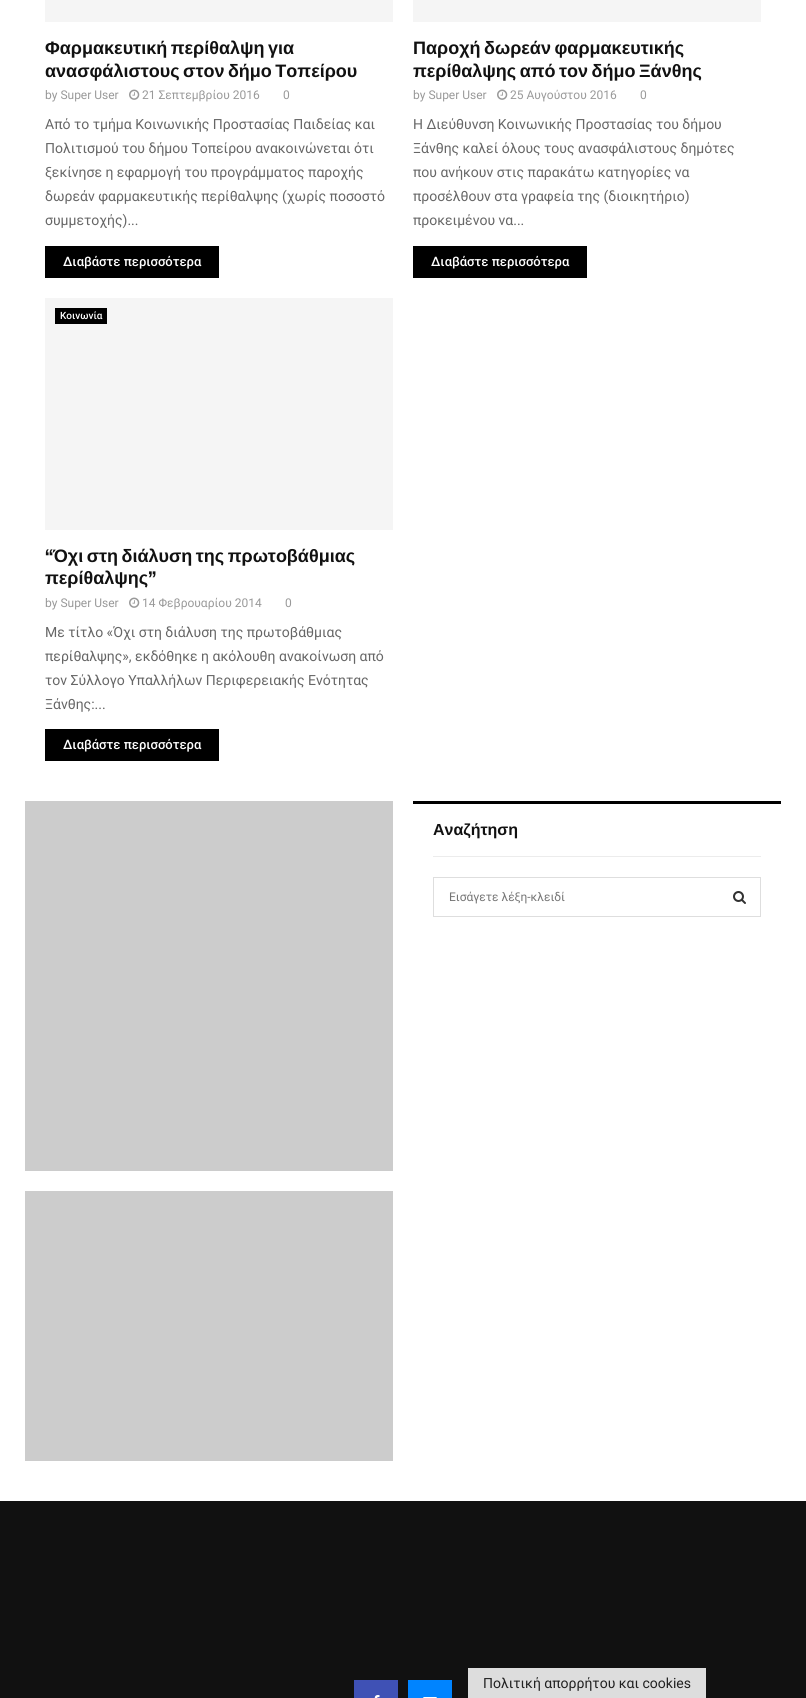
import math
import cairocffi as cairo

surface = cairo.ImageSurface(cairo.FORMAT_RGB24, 806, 1698)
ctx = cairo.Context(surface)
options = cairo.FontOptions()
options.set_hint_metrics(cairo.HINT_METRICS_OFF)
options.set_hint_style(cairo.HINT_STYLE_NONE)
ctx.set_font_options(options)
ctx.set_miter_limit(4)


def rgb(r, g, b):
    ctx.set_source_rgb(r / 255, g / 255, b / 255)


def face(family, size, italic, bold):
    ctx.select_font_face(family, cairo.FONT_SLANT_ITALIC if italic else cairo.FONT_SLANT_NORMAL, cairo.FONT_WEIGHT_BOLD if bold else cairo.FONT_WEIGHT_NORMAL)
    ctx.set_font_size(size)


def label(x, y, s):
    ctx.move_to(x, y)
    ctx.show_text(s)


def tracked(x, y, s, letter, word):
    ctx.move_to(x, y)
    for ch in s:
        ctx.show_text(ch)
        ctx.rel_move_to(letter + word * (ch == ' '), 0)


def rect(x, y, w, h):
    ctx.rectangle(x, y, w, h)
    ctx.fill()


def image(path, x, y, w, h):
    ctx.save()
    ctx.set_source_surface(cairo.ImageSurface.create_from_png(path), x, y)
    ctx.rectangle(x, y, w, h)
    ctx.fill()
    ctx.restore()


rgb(255, 255, 255)
ctx.paint()
rgb(245, 245, 245)
rect(45, 0, 348, 22)
face('Liberation Sans', 18, 0, 1)
rgb(17, 17, 17)
tracked(45, 54, 'Φαρμακευτική περίθαλψη για', 0, -1.5)
tracked(45, 77, 'ανασφάλιστους στον δήμο Τοπείρου', 0, -1.5)
face('Roboto', 12, 0, 0)
rgb(153, 153, 153)
label(45, 99, 'by Super User')
image('image0.png', 129, 89, 11, 11)
label(142, 99, '21 Σεπτεμβρίου 2016')
label(283, 99, '0')
face('Roboto', 14, 0, 0)
rgb(102, 102, 102)
label(45, 129, 'Από το τμήμα Κοινωνικής Προστασίας Παιδείας και')
label(45, 153, 'Πολιτισμού του δήμου Τοπείρου ανακοινώνεται ότι')
label(45, 177, 'ξεκίνησε η εφαρμογή του προγράμματος παροχής')
label(45, 201, 'δωρεάν φαρμακευτικής περίθαλψης (χωρίς ποσοστό')
label(45, 225, 'συμμετοχής)...')
rgb(0, 0, 0)
rect(45, 246, 174, 32)
face('Roboto Medium', 13, 0, 0)
rgb(255, 255, 255)
label(63, 266, 'Διαβάστε περισσότερα')
rgb(245, 245, 245)
rect(413, 0, 348, 22)
face('Liberation Sans', 18, 0, 1)
rgb(17, 17, 17)
tracked(413, 54, 'Παροχή δωρεάν φαρμακευτικής', 0, -1.5)
tracked(413, 77, 'περίθαλψης από τον δήμο Ξάνθης', 0, -1.5)
face('Roboto', 12, 0, 0)
rgb(153, 153, 153)
label(413, 99, 'by Super User')
image('image0.png', 497, 89, 11, 11)
label(510, 99, '25 Αυγούστου 2016')
label(640, 99, '0')
face('Roboto', 14, 0, 0)
rgb(102, 102, 102)
label(413, 129, 'Η Διεύθυνση Κοινωνικής Προστασίας του δήμου')
label(413, 153, 'Ξάνθης καλεί όλους τους ανασφάλιστους δημότες')
label(413, 177, 'που ανήκουν στις παρακάτω κατηγορίες να')
label(413, 201, 'προσέλθουν στα γραφεία της (διοικητήριο)')
label(413, 225, 'προκειμένου να...')
rgb(0, 0, 0)
rect(413, 246, 174, 32)
face('Roboto Medium', 13, 0, 0)
rgb(255, 255, 255)
label(431, 266, 'Διαβάστε περισσότερα')
rgb(245, 245, 245)
rect(45, 298, 348, 232)
rgb(0, 0, 0)
rect(55, 308, 52, 16)
face('Roboto Medium', 10, 0, 0)
rgb(255, 255, 255)
label(60, 319, 'Κοινωνία')
face('Chivo', 18, 0, 1)
rgb(17, 17, 17)
label(45, 562, '“')
face('Liberation Sans', 18, 0, 1)
tracked(53, 562, 'Όχι στη διάλυση της πρωτοβάθμιας', 0, -1.5)
label(45, 584, 'περίθαλψης')
face('Chivo', 18, 0, 1)
label(148, 584, '”')
face('Roboto', 12, 0, 0)
rgb(153, 153, 153)
label(45, 607, 'by Super User')
image('image0.png', 129, 597, 11, 11)
label(142, 607, '14 Φεβρουαρίου 2014')
label(285, 607, '0')
face('Roboto', 14, 0, 0)
rgb(102, 102, 102)
label(45, 637, 'Με τίτλο «Όχι στη διάλυση της πρωτοβάθμιας')
label(45, 661, 'περίθαλψης», εκδόθηκε η ακόλουθη ανακοίνωση από')
label(45, 685, 'τον Σύλλογο Υπαλλήλων Περιφερειακής Ενότητας')
label(45, 709, 'Ξάνθης:...')
rgb(0, 0, 0)
rect(45, 729, 174, 32)
face('Roboto Medium', 13, 0, 0)
rgb(255, 255, 255)
label(63, 749, 'Διαβάστε περισσότερα')
rgb(204, 204, 204)
rect(25, 801, 368, 370)
rect(25, 1191, 368, 270)
rgb(236, 236, 236)
rect(433, 856, 328, 1)
rgb(0, 0, 0)
rect(413, 801, 368, 3)
face('Liberation Sans', 16, 0, 1)
rgb(17, 17, 17)
label(433, 835, 'Αναζήτηση')
ctx.rectangle(433.5, 877.5, 327, 39)
rgb(222, 222, 222)
ctx.set_line_width(1)
ctx.stroke()
face('Roboto', 12, 0, 0)
rgb(117, 117, 117)
label(449, 901, 'Εισάγετε λέξη-κλειδί')
image('image1.png', 733, 891, 13, 13)
rgb(17, 17, 17)
rect(0, 1501, 806, 197)
rgb(63, 81, 181)
rect(354, 1680, 44, 18)
image('image2.png', 374, 1695, 6, 3)
rgb(0, 132, 255)
rect(408, 1680, 44, 18)
image('image3.png', 423, 1697, 14, 1)
rgb(221, 221, 221)
rect(468, 1668, 238, 30)
face('Roboto', 14, 0, 0)
rgb(33, 33, 33)
label(483, 1688, 'Πολιτική απορρήτου και cookies')
surface.write_to_png('render.png')
